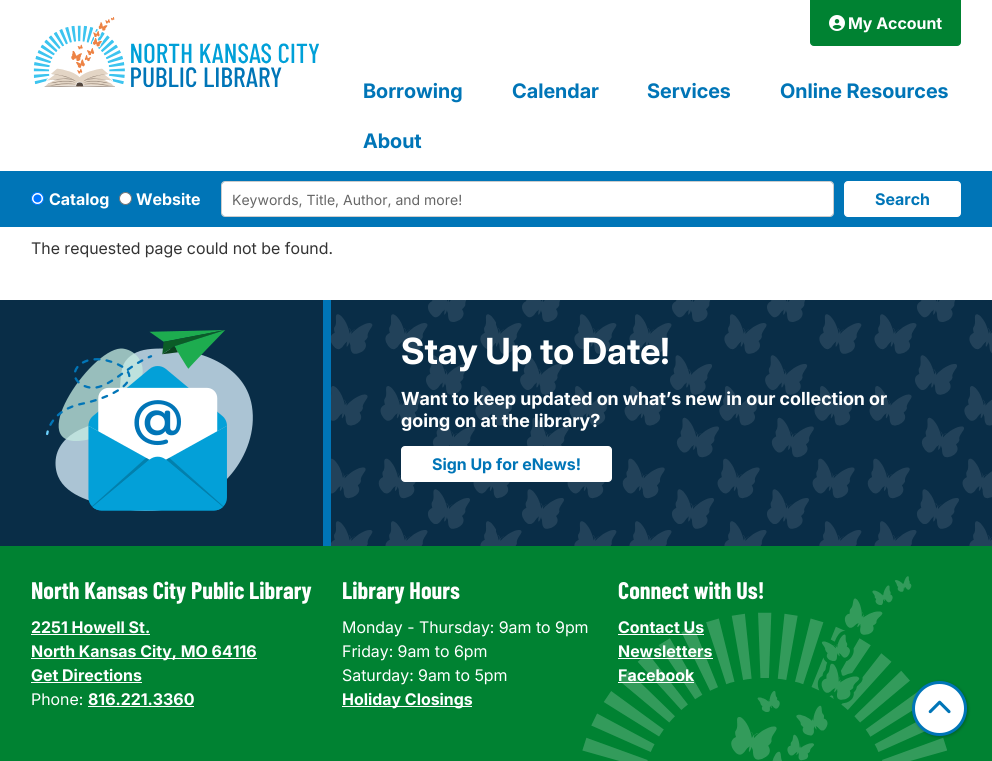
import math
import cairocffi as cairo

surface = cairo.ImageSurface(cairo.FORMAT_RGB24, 992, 761)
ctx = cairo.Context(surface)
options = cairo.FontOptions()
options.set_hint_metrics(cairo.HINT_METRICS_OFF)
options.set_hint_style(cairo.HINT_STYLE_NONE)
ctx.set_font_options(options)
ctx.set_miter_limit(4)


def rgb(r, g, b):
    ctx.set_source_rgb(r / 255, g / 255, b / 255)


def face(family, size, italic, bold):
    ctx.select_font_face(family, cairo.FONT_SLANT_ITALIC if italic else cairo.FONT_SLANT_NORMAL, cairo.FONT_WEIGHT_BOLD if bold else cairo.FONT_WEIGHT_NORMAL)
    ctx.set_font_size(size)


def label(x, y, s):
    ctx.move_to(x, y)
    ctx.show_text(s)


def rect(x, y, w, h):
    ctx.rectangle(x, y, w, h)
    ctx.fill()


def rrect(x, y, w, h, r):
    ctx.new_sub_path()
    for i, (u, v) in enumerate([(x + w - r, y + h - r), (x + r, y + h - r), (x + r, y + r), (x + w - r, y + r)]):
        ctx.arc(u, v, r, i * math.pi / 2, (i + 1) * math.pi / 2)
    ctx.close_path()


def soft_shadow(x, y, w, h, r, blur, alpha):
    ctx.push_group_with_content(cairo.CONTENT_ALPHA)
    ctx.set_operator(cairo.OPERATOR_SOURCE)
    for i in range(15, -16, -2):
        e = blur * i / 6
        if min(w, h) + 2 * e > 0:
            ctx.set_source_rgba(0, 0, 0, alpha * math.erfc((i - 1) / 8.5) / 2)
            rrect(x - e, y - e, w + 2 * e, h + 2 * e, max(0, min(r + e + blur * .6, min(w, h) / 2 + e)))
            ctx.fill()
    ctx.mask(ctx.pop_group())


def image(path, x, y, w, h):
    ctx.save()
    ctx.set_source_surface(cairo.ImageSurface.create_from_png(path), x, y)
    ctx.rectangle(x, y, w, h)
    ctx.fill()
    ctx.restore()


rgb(255, 255, 255)
ctx.paint()
image('image0.png', 33, 17, 286, 71)
rgb(0, 130, 50)
ctx.new_path()
ctx.move_to(810.5, 0.5)
ctx.line_to(960.5, 0.5)
ctx.line_to(960.5, 42)
ctx.curve_to(960.5, 44, 959, 45.5, 957, 45.5)
ctx.line_to(814, 45.5)
ctx.curve_to(812, 45.5, 810.5, 44, 810.5, 42)
ctx.close_path()
ctx.fill_preserve()
ctx.set_line_width(1)
ctx.stroke()
image('image1.png', 829, 15, 16, 16)
face('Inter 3', 16, 0, 1)
rgb(255, 255, 255)
label(848, 29, 'My Account')
face('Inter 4', 20, 0, 1)
rgb(0, 117, 183)
label(363, 98, 'Borrowing')
label(512, 98, 'Calendar')
label(647, 98, 'Services')
label(780, 98, 'Online Resources')
label(363, 148, 'About')
rect(0, 171, 992, 56)
rgb(255, 255, 255)
ctx.new_path()
ctx.arc(37.5, 198.5, 6, 0, 2 * math.pi)
ctx.fill_preserve()
rgb(0, 117, 255)
ctx.stroke()
ctx.arc(37.5, 198.5, 4, 0, 2 * math.pi)
ctx.fill()
face('Inter 3', 16, 0, 1)
rgb(255, 255, 255)
label(49, 205, 'Catalog')
ctx.new_path()
ctx.arc(125.5, 198.5, 6, 0, 2 * math.pi)
ctx.fill_preserve()
rgb(118, 118, 118)
ctx.stroke()
rgb(255, 255, 255)
label(136, 205, 'Website')
rrect(222, 182, 611, 34, 2.5)
ctx.fill()
rrect(221.5, 181.5, 612, 35, 3.5)
rgb(204, 204, 204)
ctx.stroke()
face('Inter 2', 14, 0, 0)
rgb(102, 102, 102)
label(232, 205, 'Keywords, Title, Author, and more!')
rgb(255, 255, 255)
rrect(844.5, 181.5, 116, 35, 3.5)
ctx.fill_preserve()
ctx.stroke()
face('Inter 3', 16, 0, 1)
rgb(0, 117, 183)
label(875, 205, 'Search')
face('Inter', 16, 0, 0)
rgb(51, 51, 51)
label(31, 254, 'The requested page could not be found.')
rgb(9, 45, 71)
rect(331, 300, 661, 246)
image('image2.png', 331, 300, 661, 246)
rgb(0, 117, 183)
rect(323, 300, 8, 246)
rgb(9, 45, 71)
rect(0, 300, 323, 246)
image('image3.png', 46, 330, 207, 181)
face('Inter', 36, 0, 1)
rgb(255, 255, 255)
label(401, 364, 'Stay Up to Date!')
face('Inter 2', 18, 0, 1)
label(401, 405, 'Want to keep updated on what’s new in our collection or')
label(401, 427, 'going on at the library?')
rrect(401.5, 446.5, 210, 35, 3.5)
ctx.fill_preserve()
ctx.stroke()
face('Inter 3', 16, 0, 1)
rgb(0, 117, 183)
label(432, 470, 'Sign Up for eNews!')
rgb(0, 130, 50)
rect(0, 546, 992, 215)
image('image4.png', 582, 576, 365, 185)
face('Barlow Condensed', 24, 0, 1)
rgb(255, 255, 255)
label(31, 599, 'North Kansas City Public Library')
face('Inter 3', 16, 0, 1)
label(31, 633, '2251 Howell St.')
rect(31, 634, 119, 1)
rect(31, 658, 226, 1)
label(31, 657, 'North Kansas City, MO 64116')
label(31, 681, 'Get Directions')
rect(31, 682, 111, 1)
face('Inter', 16, 0, 0)
label(31, 705, 'Phone:')
face('Inter 3', 16, 0, 1)
label(88, 705, '816.221.3360')
rect(88, 706, 106, 1)
face('Barlow Condensed', 24, 0, 1)
label(342, 599, 'Library Hours')
face('Inter', 16, 0, 0)
label(342, 633, 'Monday - Thursday: 9am to 9pm')
label(342, 657, 'Friday: 9am to 6pm')
label(342, 681, 'Saturday: 9am to 5pm')
rect(342, 706, 130, 1)
face('Inter 3', 16, 0, 1)
label(342, 705, 'Holiday Closings')
face('Barlow Condensed', 24, 0, 1)
label(618, 599, 'Connect with Us!')
face('Inter 3', 16, 0, 1)
label(618, 633, 'Contact Us')
rect(618, 634, 86, 1)
label(618, 657, 'Newsletters')
rect(618, 658, 95, 1)
label(618, 681, 'Facebook')
rect(618, 682, 76, 1)
rgb(0, 0, 0)
soft_shadow(913, 682, 55, 55, 27.5, 1.5, 0.25)
rgb(255, 255, 255)
ctx.arc(939.5, 708.5, 26, 0, 2 * math.pi)
ctx.fill_preserve()
rgb(0, 117, 183)
ctx.set_line_width(3)
ctx.stroke()
image('image5.png', 928, 700, 23, 14)
surface.write_to_png('render.png')
